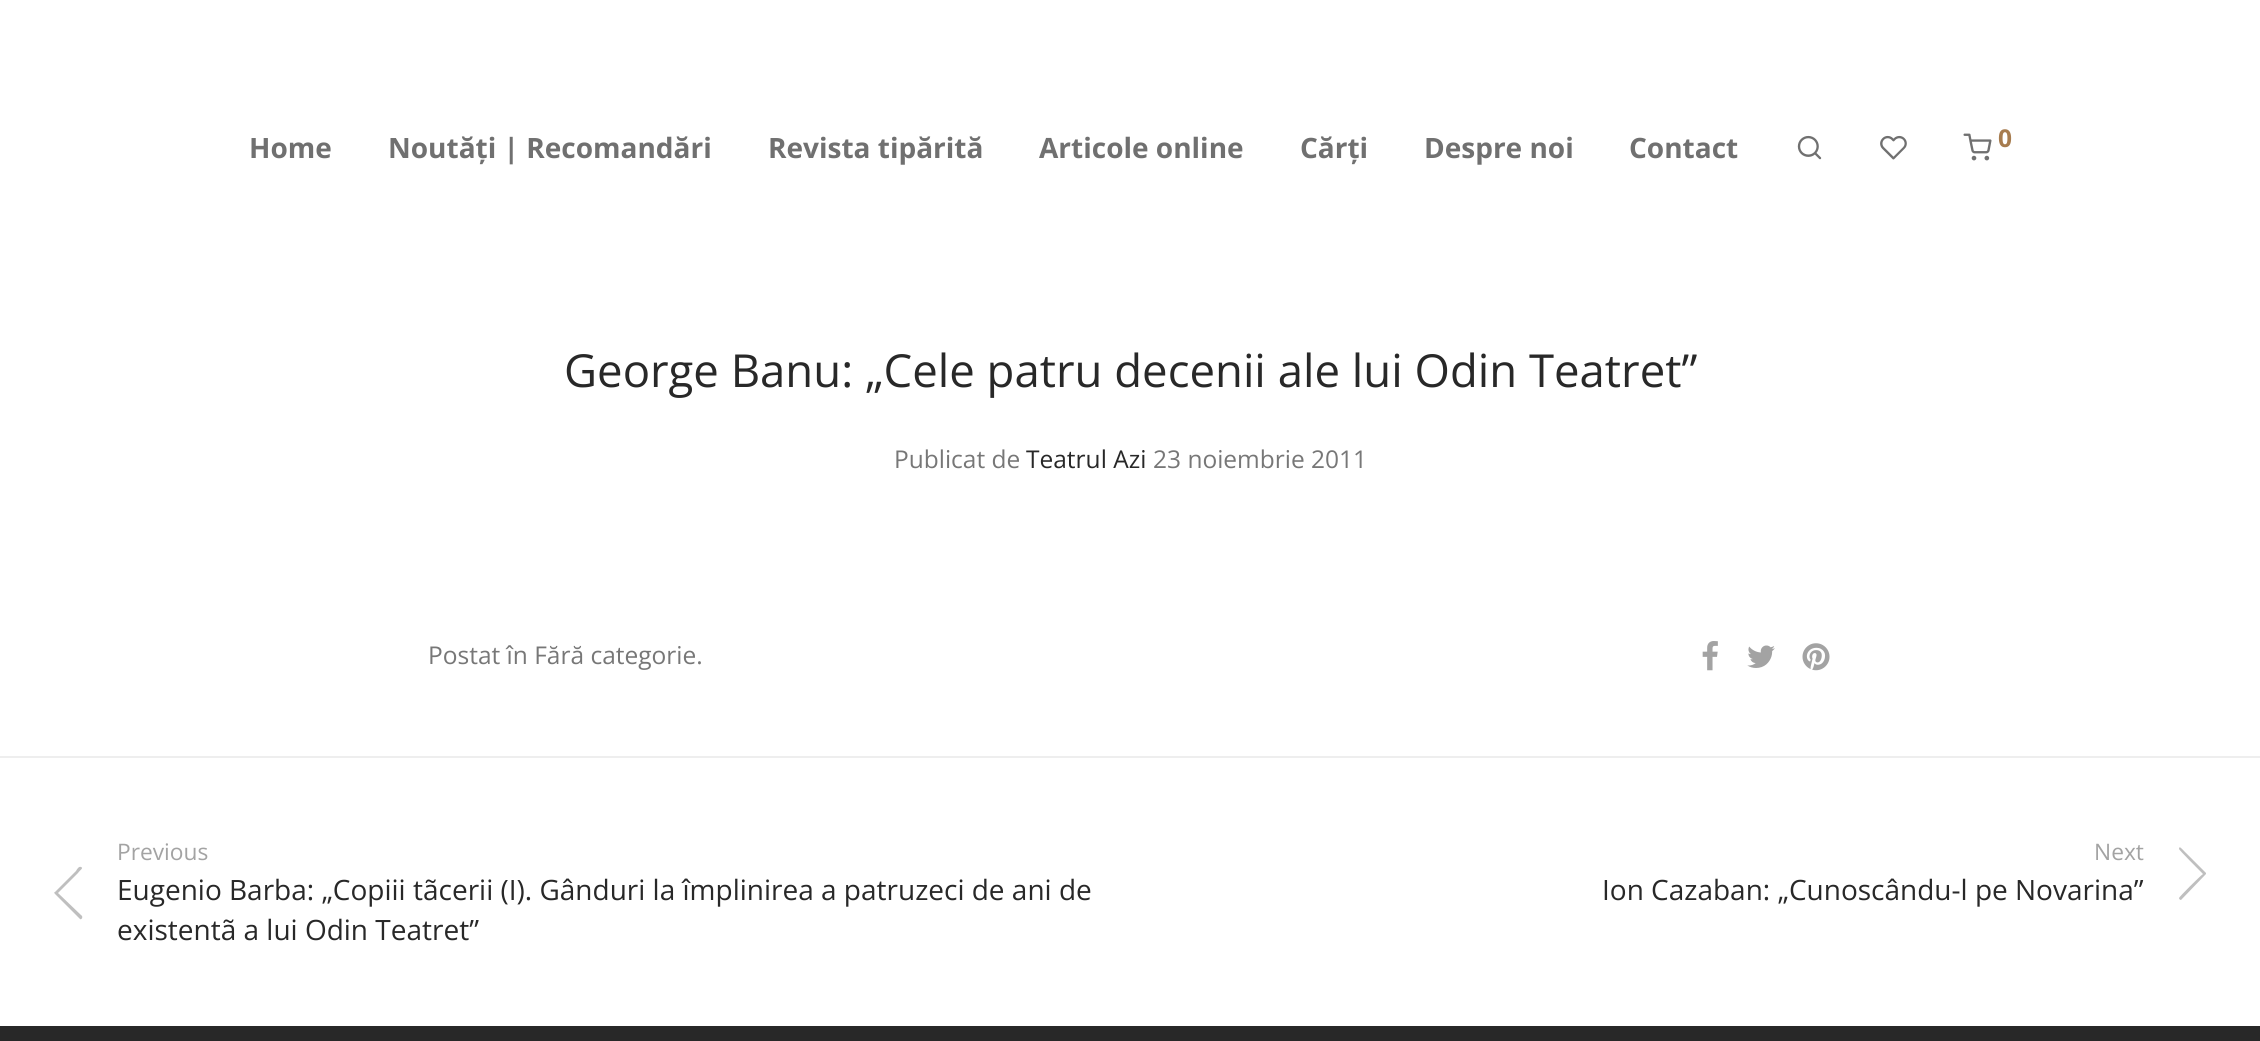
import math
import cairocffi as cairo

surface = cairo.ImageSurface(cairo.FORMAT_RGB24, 2260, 1041)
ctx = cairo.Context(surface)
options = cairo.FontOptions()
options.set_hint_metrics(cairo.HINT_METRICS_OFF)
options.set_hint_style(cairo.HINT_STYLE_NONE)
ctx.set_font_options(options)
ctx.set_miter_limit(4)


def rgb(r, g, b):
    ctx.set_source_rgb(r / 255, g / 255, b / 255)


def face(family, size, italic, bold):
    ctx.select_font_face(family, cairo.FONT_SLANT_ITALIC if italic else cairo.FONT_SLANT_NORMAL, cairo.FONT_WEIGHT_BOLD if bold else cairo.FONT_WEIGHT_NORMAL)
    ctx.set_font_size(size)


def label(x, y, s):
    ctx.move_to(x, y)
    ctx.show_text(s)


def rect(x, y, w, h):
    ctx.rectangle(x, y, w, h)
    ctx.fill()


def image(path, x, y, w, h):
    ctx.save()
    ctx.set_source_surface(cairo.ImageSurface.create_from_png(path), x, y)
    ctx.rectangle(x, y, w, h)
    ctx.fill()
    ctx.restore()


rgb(255, 255, 255)
ctx.paint()
face('Open Sans', 28, 0, 1)
rgb(112, 112, 112)
label(249, 158, 'Home')
label(388, 158, 'Noutăți | Recomandări')
label(768, 158, 'Revista tipărită')
label(1039, 158, 'Articole online')
label(1300, 158, 'Cărți')
label(1424, 158, 'Despre noi')
label(1629, 158, 'Contact')
image('image0.png', 1797, 135, 25, 25)
image('image1.png', 1880, 135, 27, 25)
image('image2.png', 1963, 133, 29, 28)
face('Open Sans', 24.5, 0, 1)
rgb(167, 124, 79)
label(1998, 147, '0')
face('Open Sans', 45.5, 0, 0)
rgb(40, 40, 40)
label(564, 387, 'George Banu: „Cele patru decenii ale lui Odin Teatret”')
face('Open Sans', 24.5, 0, 0)
rgb(119, 119, 119)
label(894, 468, 'Publicat de')
rgb(40, 40, 40)
label(1026, 468, 'Teatrul Azi')
rgb(119, 119, 119)
label(1153, 468, '23 noiembrie 2011')
label(428, 664, 'Postat în Fără categorie.')
image('image3.png', 1702, 641, 16, 30)
image('image4.png', 1747, 645, 28, 23)
image('image5.png', 1802, 643, 28, 28)
rgb(238, 238, 238)
rect(0, 756, 2260, 2)
face('Open Sans', 22.75, 0, 0)
rgb(163, 163, 163)
label(117, 860, 'Previous')
rgb(191, 191, 191)
ctx.new_path()
ctx.move_to(55, 892)
ctx.line_to(76, 871)
ctx.curve_to(77, 869, 79, 866, 81, 867)
ctx.curve_to(84, 868, 80, 870, 78, 873)
ctx.line_to(58, 893)
ctx.line_to(82, 916)
ctx.curve_to(83, 918, 81, 920, 80, 919)
ctx.line_to(55, 894)
ctx.curve_to(54, 893, 54, 892, 55, 892)
ctx.close_path()
ctx.fill()
face('Open Sans', 28, 0, 0)
rgb(40, 40, 40)
label(117, 900, 'Eugenio Barba: „Copiii tãcerii (I). Gânduri la împlinirea a patruzeci de ani de')
label(117, 940, 'existentã a lui Odin Teatret”')
face('Open Sans', 22.75, 0, 0)
rgb(163, 163, 163)
label(2094, 860, 'Next')
rgb(191, 191, 191)
ctx.new_path()
ctx.move_to(2206, 874)
ctx.line_to(2181, 900)
ctx.curve_to(2180, 900, 2179, 899, 2179, 898)
ctx.curve_to(2179, 897, 2200, 876, 2203, 874)
ctx.curve_to(2200, 871, 2179, 850, 2179, 849)
ctx.curve_to(2179, 845, 2182, 849, 2185, 852)
ctx.line_to(2206, 873)
ctx.close_path()
ctx.fill()
face('Open Sans', 28, 0, 0)
rgb(40, 40, 40)
label(1602, 900, 'Ion Cazaban: „Cunoscându-l pe Novarina”')
rect(0, 1026, 2260, 15)
surface.write_to_png('render.png')
